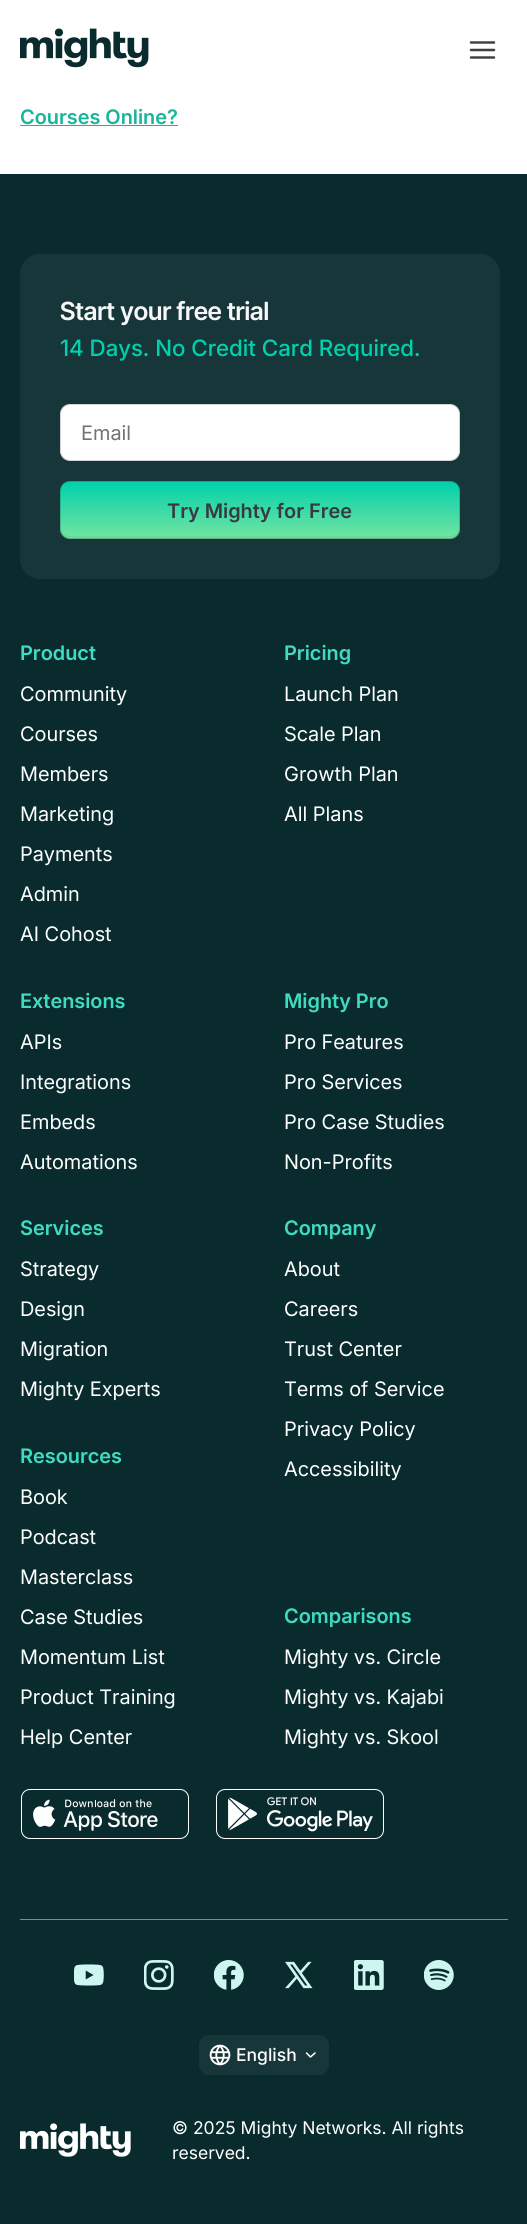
import math
import cairocffi as cairo

surface = cairo.ImageSurface(cairo.FORMAT_RGB24, 527, 2224)
ctx = cairo.Context(surface)
options = cairo.FontOptions()
options.set_hint_metrics(cairo.HINT_METRICS_OFF)
options.set_hint_style(cairo.HINT_STYLE_NONE)
ctx.set_font_options(options)
ctx.set_miter_limit(4)


def rgb(r, g, b):
    ctx.set_source_rgb(r / 255, g / 255, b / 255)


def face(family, size, italic, bold):
    ctx.select_font_face(family, cairo.FONT_SLANT_ITALIC if italic else cairo.FONT_SLANT_NORMAL, cairo.FONT_WEIGHT_BOLD if bold else cairo.FONT_WEIGHT_NORMAL)
    ctx.set_font_size(size)


def label(x, y, s):
    ctx.move_to(x, y)
    ctx.show_text(s)


def rect(x, y, w, h):
    ctx.rectangle(x, y, w, h)
    ctx.fill()


def rrect(x, y, w, h, r):
    ctx.new_sub_path()
    for i, (u, v) in enumerate([(x + w - r, y + h - r), (x + r, y + h - r), (x + r, y + r), (x + w - r, y + r)]):
        ctx.arc(u, v, r, i * math.pi / 2, (i + 1) * math.pi / 2)
    ctx.close_path()


def image(path, x, y, w, h):
    ctx.save()
    ctx.set_source_surface(cairo.ImageSurface.create_from_png(path), x, y)
    ctx.rectangle(x, y, w, h)
    ctx.fill()
    ctx.restore()


rgb(255, 255, 255)
ctx.paint()
image('image0.png', 20, 28, 129, 40)
ctx.new_path()
ctx.move_to(471, 50)
ctx.line_to(494, 50)
ctx.move_to(471, 42.5)
ctx.line_to(494, 42.5)
ctx.move_to(471, 57.5)
ctx.line_to(494, 57.5)
rgb(64, 64, 64)
ctx.set_line_width(2.5)
ctx.set_line_cap(cairo.LINE_CAP_ROUND)
ctx.set_line_join(cairo.LINE_JOIN_ROUND)
ctx.stroke()
face('Inter SemiBold', 20, 0, 0)
rgb(24, 181, 155)
label(20, 124, 'Courses Online?')
rect(20, 125, 158, 1)
rgb(9, 43, 46)
rect(0, 174, 527, 2050)
rgb(22, 54, 57)
rrect(20, 254, 480, 325, 20)
ctx.fill()
face('Inter Tight SemiBold', 25, 0, 0)
rgb(247, 247, 247)
label(60, 320, 'Start your free trial')
face('Inter Medium', 22.5, 0, 0)
rgb(0, 208, 173)
label(60, 356, '14 Days. No Credit Card Required.')
rgb(255, 255, 255)
rrect(60.5, 404.5, 399, 56, 9.5)
ctx.fill_preserve()
rgb(212, 212, 212)
ctx.set_line_width(1)
ctx.set_line_cap(cairo.LINE_CAP_BUTT)
ctx.set_line_join(cairo.LINE_JOIN_MITER)
ctx.stroke()
face('Inter', 20, 0, 0)
rgb(115, 115, 115)
label(81, 440, 'Email')
gradient = cairo.LinearGradient(260, 481, 260, 575)
gradient.add_color_stop_rgba(0, 0, 0.816, 0.678, 1)
gradient.add_color_stop_rgba(1, 0.741, 0.945, 0.596, 1)
ctx.set_source(gradient)
rrect(60, 481, 400, 58, 10)
ctx.fill()
ctx.set_source_rgba(0.039, 0.051, 0.071, 0.05)
ctx.new_path()
ctx.move_to(60, 526)
ctx.curve_to(60, 533, 62, 539, 70, 539)
ctx.line_to(452, 539)
ctx.curve_to(459, 537, 460, 532, 460, 526)
ctx.curve_to(460, 532, 456, 536, 450, 536)
ctx.line_to(70, 536)
ctx.curve_to(64, 536, 60, 532, 60, 526)
ctx.close_path()
ctx.fill()
rrect(60.5, 481.5, 399, 57, 9.5)
ctx.set_source_rgba(0.039, 0.051, 0.071, 0.18)
ctx.stroke()
face('Inter SemiBold', 20, 0, 0)
rgb(55, 58, 65)
label(167, 518, 'Try Mighty for Free')
rgb(64, 220, 193)
label(20, 660, 'Product')
face('Inter', 20, 0, 0)
rgb(255, 255, 255)
label(20, 701, 'Community')
label(20, 741, 'Courses')
label(20, 781, 'Members')
label(20, 821, 'Marketing')
label(20, 861, 'Payments')
label(20, 901, 'Admin')
label(20, 941, 'AI Cohost')
face('Inter SemiBold', 20, 0, 0)
rgb(64, 220, 193)
label(20, 1008, 'Extensions')
face('Inter', 20, 0, 0)
rgb(255, 255, 255)
label(20, 1049, 'APIs')
label(20, 1089, 'Integrations')
label(20, 1129, 'Embeds')
label(20, 1169, 'Automations')
face('Inter SemiBold', 20, 0, 0)
rgb(64, 220, 193)
label(284, 660, 'Pricing')
face('Inter', 20, 0, 0)
rgb(255, 255, 255)
label(284, 701, 'Launch Plan')
label(284, 741, 'Scale Plan')
label(284, 781, 'Growth Plan')
label(284, 821, 'All Plans')
face('Inter SemiBold', 20, 0, 0)
rgb(64, 220, 193)
label(284, 1008, 'Mighty Pro')
face('Inter', 20, 0, 0)
rgb(255, 255, 255)
label(284, 1049, 'Pro Features')
label(284, 1089, 'Pro Services')
label(284, 1129, 'Pro Case Studies')
label(284, 1169, 'Non-Profits')
face('Inter SemiBold', 20, 0, 0)
rgb(64, 220, 193)
label(20, 1235, 'Services')
face('Inter', 20, 0, 0)
rgb(255, 255, 255)
label(20, 1276, 'Strategy')
label(20, 1316, 'Design')
label(20, 1356, 'Migration')
label(20, 1396, 'Mighty Experts')
face('Inter SemiBold', 20, 0, 0)
rgb(64, 220, 193)
label(20, 1463, 'Resources')
face('Inter', 20, 0, 0)
rgb(255, 255, 255)
label(20, 1504, 'Book')
label(20, 1544, 'Podcast')
label(20, 1584, 'Masterclass')
label(20, 1624, 'Case Studies')
label(20, 1664, 'Momentum List')
label(20, 1704, 'Product Training')
label(20, 1744, 'Help Center')
face('Inter SemiBold', 20, 0, 0)
rgb(64, 220, 193)
label(284, 1235, 'Company')
face('Inter', 20, 0, 0)
rgb(255, 255, 255)
label(284, 1276, 'About')
label(284, 1316, 'Careers')
label(284, 1356, 'Trust Center')
label(284, 1396, 'Terms of Service')
label(284, 1436, 'Privacy Policy')
label(284, 1476, 'Accessibility')
face('Inter SemiBold', 20, 0, 0)
rgb(64, 220, 193)
label(284, 1623, 'Comparisons')
face('Inter', 20, 0, 0)
rgb(255, 255, 255)
label(284, 1664, 'Mighty vs. Circle')
label(284, 1704, 'Mighty vs. Kajabi')
label(284, 1744, 'Mighty vs. Skool')
image('image1.png', 21, 1789, 168, 50)
image('image2.png', 216, 1789, 168, 50)
rgb(13, 194, 164)
rect(20, 1919, 488, 1)
image('image3.png', 74, 1964, 30, 22)
image('image4.png', 144, 1960, 30, 30)
image('image5.png', 214, 1960, 30, 30)
image('image6.png', 285, 1961, 28, 28)
image('image7.png', 354, 1960, 30, 30)
image('image8.png', 424, 1960, 30, 30)
rgb(22, 54, 57)
rrect(199, 2035, 130, 40, 10)
ctx.fill()
image('image9.png', 209, 2044, 22, 22)
face('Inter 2 Medium', 17.5, 0, 0)
rgb(255, 255, 255)
label(236, 2061, 'English')
ctx.new_path()
ctx.move_to(306.5, 2053)
ctx.line_to(310.5, 2057)
ctx.line_to(315, 2053)
ctx.set_line_width(1.5)
ctx.set_line_cap(cairo.LINE_CAP_ROUND)
ctx.set_line_join(cairo.LINE_JOIN_ROUND)
ctx.stroke()
image('image10.png', 20, 2123, 111, 34)
face('Inter 2', 17.5, 0, 0)
label(172, 2134, '© 2025 Mighty Networks. All rights')
label(172, 2159, 'reserved.')
surface.write_to_png('render.png')
